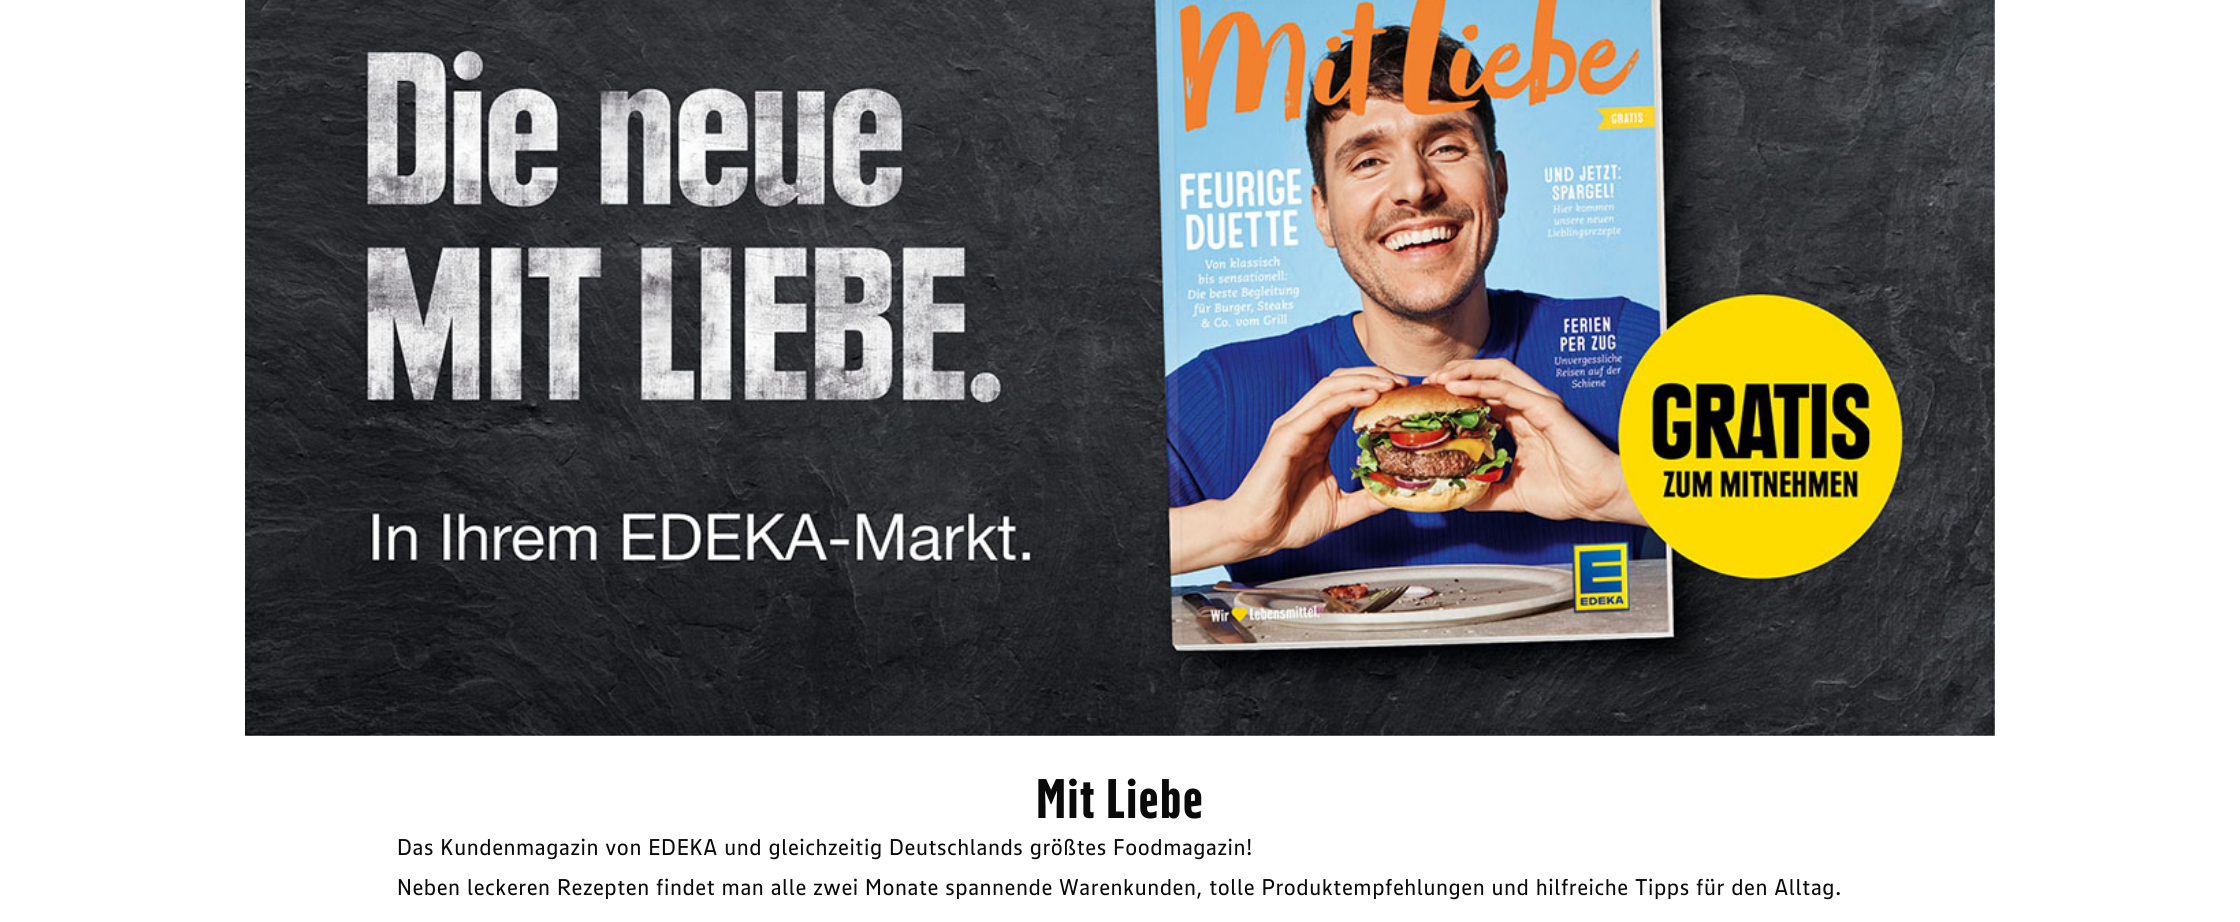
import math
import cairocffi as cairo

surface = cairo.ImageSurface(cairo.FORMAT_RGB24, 2240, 922)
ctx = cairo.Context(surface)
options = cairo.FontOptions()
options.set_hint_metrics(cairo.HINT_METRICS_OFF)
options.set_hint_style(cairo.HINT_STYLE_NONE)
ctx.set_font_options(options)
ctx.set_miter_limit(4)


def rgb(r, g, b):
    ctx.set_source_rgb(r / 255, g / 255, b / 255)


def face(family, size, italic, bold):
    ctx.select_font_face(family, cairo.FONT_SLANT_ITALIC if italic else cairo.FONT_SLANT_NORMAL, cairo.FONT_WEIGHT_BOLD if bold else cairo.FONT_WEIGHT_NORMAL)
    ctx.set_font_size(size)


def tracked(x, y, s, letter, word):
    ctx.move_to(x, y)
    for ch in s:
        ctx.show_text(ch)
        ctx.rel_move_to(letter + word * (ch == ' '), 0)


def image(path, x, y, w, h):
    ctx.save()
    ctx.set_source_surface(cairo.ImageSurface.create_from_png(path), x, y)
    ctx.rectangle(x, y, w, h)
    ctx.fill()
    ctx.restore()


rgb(255, 255, 255)
ctx.paint()
image('image0.png', 245, 0, 1750, 736)
face('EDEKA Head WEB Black', 55, 0, 0)
rgb(10, 10, 10)
tracked(1036, 818, 'Mit Liebe', 1.4, 0)
face('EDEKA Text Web', 22.5, 0, 0)
tracked(397, 855, 'Das Kundenmagazin von EDEKA und gleichzeitig Deutschlands größtes Foodmagazin!', 0.56, 0)
tracked(397, 895, 'Neben leckeren Rezepten findet man alle zwei Monate spannende Warenkunden, tolle Produktempfehlungen und hilfreiche Tipps für den Alltag.', 0.56, 0)
surface.write_to_png('render.png')
